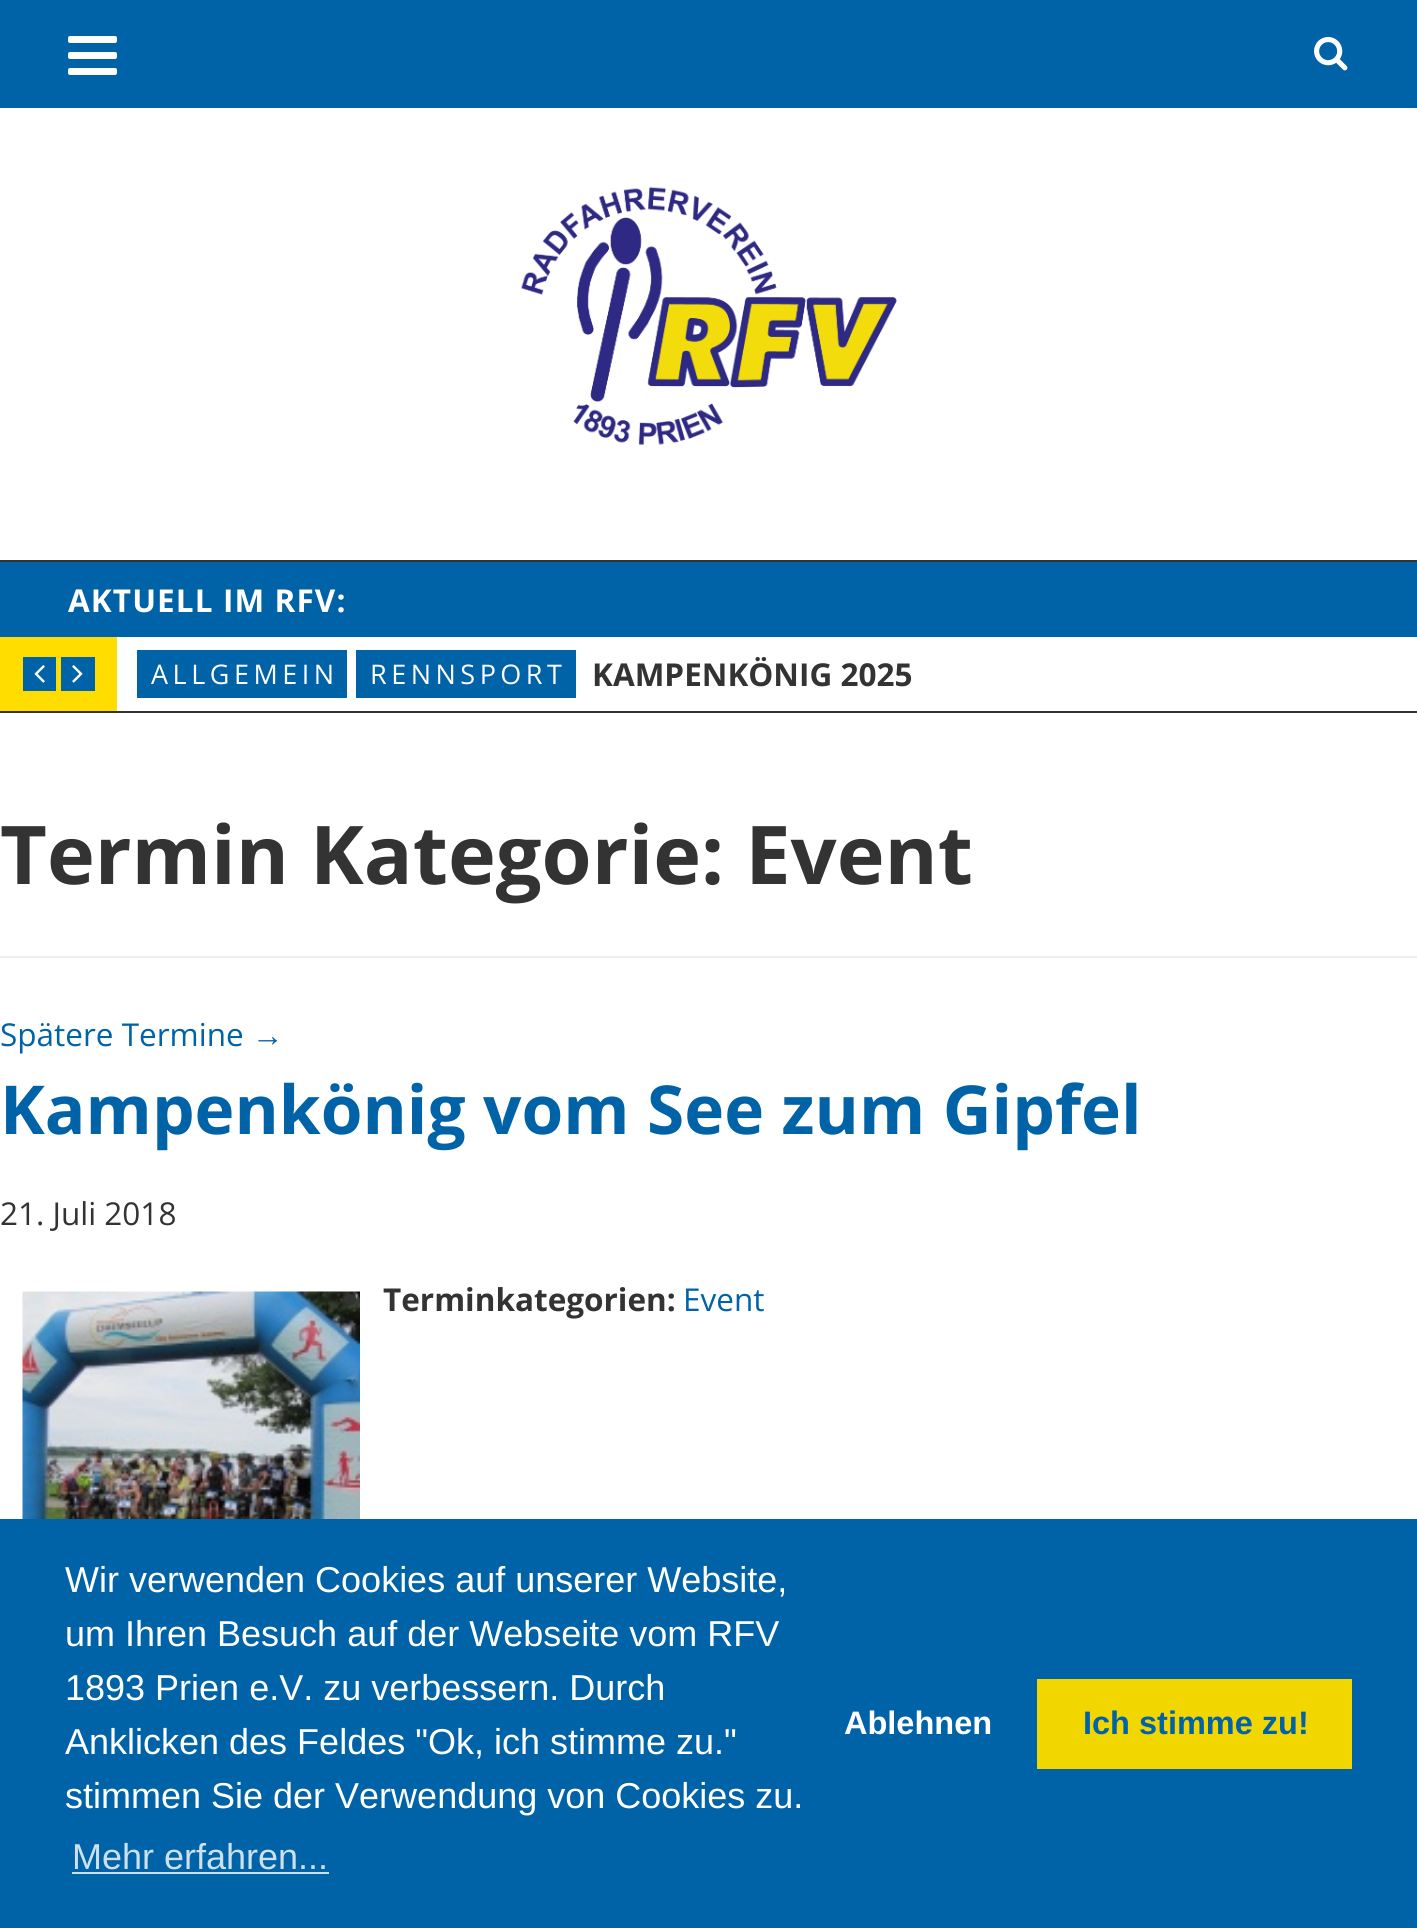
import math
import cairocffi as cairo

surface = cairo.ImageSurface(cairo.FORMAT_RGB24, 1417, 1928)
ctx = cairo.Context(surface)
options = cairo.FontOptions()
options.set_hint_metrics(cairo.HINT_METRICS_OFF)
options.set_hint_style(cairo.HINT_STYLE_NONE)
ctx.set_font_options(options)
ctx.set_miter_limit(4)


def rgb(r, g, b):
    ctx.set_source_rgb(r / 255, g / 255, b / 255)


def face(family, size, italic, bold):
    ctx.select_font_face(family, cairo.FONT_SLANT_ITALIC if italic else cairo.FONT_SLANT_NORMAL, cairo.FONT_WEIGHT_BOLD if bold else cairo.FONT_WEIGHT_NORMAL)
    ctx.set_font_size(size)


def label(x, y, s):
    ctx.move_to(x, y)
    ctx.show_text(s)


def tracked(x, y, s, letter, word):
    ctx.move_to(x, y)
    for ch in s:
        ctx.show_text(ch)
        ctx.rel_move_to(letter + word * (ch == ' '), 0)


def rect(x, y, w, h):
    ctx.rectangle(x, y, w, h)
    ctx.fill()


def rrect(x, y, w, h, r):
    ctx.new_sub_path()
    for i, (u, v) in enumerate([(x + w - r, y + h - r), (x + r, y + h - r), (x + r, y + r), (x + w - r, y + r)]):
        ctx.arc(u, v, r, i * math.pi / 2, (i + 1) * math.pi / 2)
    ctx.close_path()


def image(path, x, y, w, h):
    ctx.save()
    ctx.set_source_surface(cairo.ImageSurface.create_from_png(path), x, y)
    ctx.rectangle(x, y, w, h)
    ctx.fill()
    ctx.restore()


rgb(255, 255, 255)
ctx.paint()
rgb(0, 98, 167)
rect(0, 0, 1417, 108)
rgb(255, 255, 255)
rrect(68, 36, 49, 7, 2)
ctx.fill()
rrect(68, 52, 49, 7, 2)
ctx.fill()
rrect(68, 68, 49, 7, 2)
ctx.fill()
image('image0.png', 1314, 37, 34, 34)
image('image1.png', 521, 186, 376, 259)
rgb(0, 98, 167)
rect(0, 562, 1417, 75)
rgb(52, 51, 52)
rect(0, 560, 1417, 2)
rect(0, 711, 1417, 2)
face('Open Sans', 31.5, 0, 1)
rgb(255, 255, 255)
tracked(68, 612, 'AKTUELL IM RFV:', 1.1, 0)
rgb(255, 221, 0)
rect(0, 637, 117, 74)
rgb(0, 98, 167)
rect(23, 657, 33, 34)
image('image2.png', 34, 665, 11, 18)
rect(61, 657, 34, 34)
image('image3.png', 72, 665, 11, 18)
rect(137, 650, 210, 48)
face('Open Sans', 27, 0, 0)
rgb(255, 255, 255)
tracked(151, 684, 'ALLGEMEIN', 4.5, 0)
rgb(0, 98, 167)
rect(356, 650, 220, 48)
rgb(255, 255, 255)
tracked(370, 684, 'RENNSPORT', 4.5, 0)
face('Open Sans', 31.5, 0, 1)
rgb(51, 51, 51)
label(592, 686, 'KAMPENKÖNIG 2025')
rgb(238, 238, 238)
rect(0, 956, 1417, 2)
face('Open Sans', 81, 0, 1)
rgb(51, 51, 51)
label(0, 884, 'Termin Kategorie: Event')
face('Open Sans', 31.5, 0, 0)
rgb(0, 98, 167)
label(0, 1046, 'Spätere Termine')
face('Liberation Sans', 31.5, 0, 0)
label(252, 1046, '→')
face('Open Sans', 67.5, 0, 1)
label(0, 1134, 'Kampenkönig vom See zum Gipfel')
face('Open Sans', 31.5, 0, 0)
rgb(51, 51, 51)
label(0, 1225, '21. Juli 2018')
image('image4.png', 22, 1291, 338, 228)
rrect(344, 1294, 12, 11, 5.5)
ctx.fill()
face('Open Sans', 31.5, 0, 1)
label(383, 1311, 'Terminkategorien:')
face('Open Sans', 31.5, 0, 0)
rgb(0, 98, 167)
label(683, 1311, 'Event')
rect(0, 1519, 1417, 409)
face('Liberation Sans', 36, 0, 0)
rgb(255, 255, 255)
label(65, 1592, 'Wir verwenden Cookies auf unserer Website,')
label(65, 1646, 'um Ihren Besuch auf der Webseite vom RFV')
label(65, 1700, '1893 Prien e.V. zu verbessern. Durch')
label(65, 1754, 'Anklicken des Feldes "Ok, ich stimme zu."')
label(65, 1808, 'stimmen Sie der Verwendung von Cookies zu.')
rgb(204, 224, 237)
label(72, 1869, 'Mehr erfahren...')
rect(72, 1872, 257, 2)
face('Liberation Sans', 32.5, 0, 1)
rgb(255, 255, 255)
label(844, 1734, 'Ablehnen')
rgb(241, 214, 0)
rect(1037, 1679, 315, 90)
rgb(0, 98, 167)
label(1083, 1734, 'Ich stimme zu!')
surface.write_to_png('render.png')
